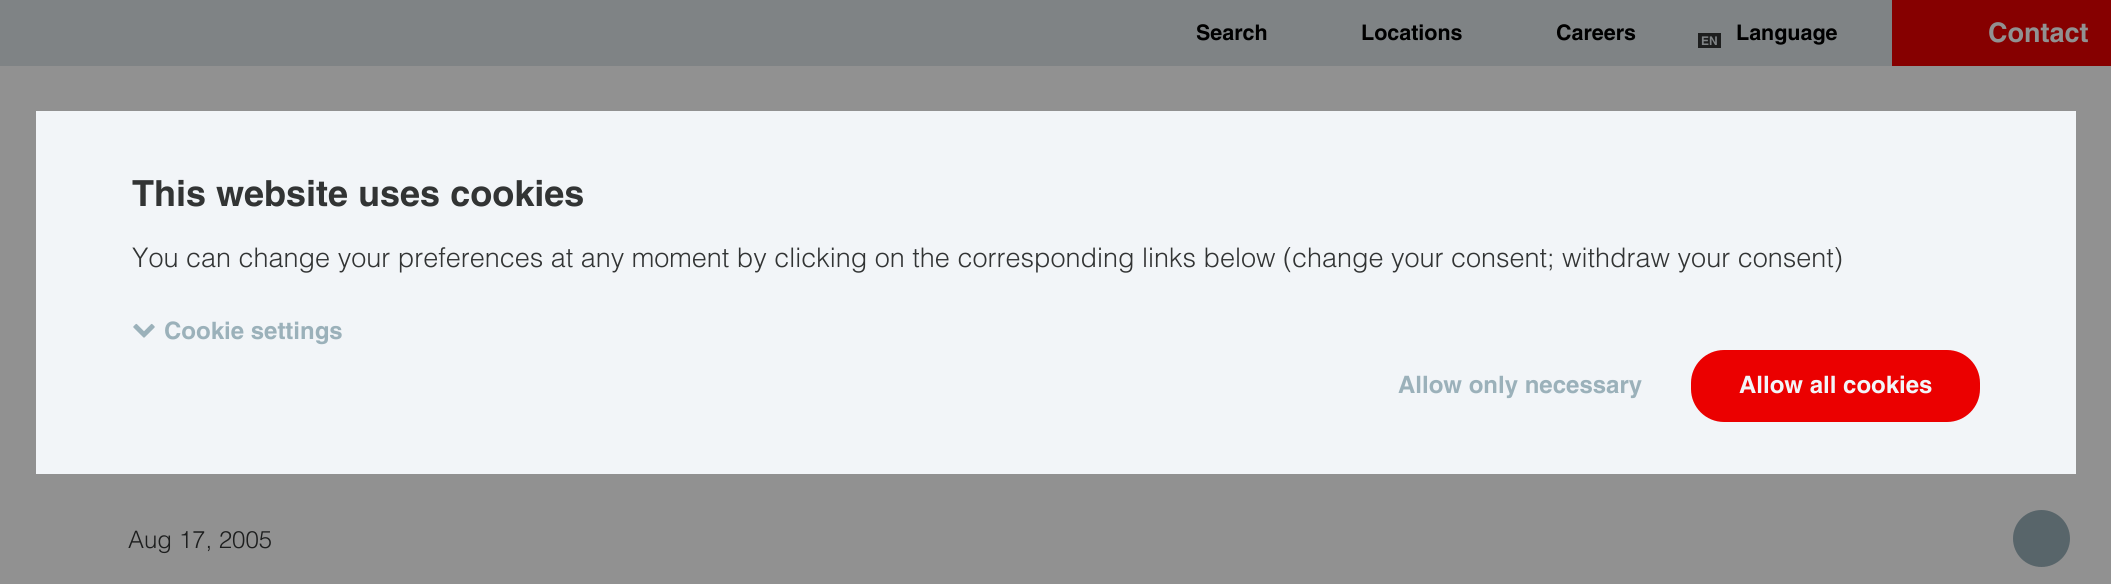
import math
import cairocffi as cairo

surface = cairo.ImageSurface(cairo.FORMAT_RGB24, 2111, 584)
ctx = cairo.Context(surface)
options = cairo.FontOptions()
options.set_hint_metrics(cairo.HINT_METRICS_OFF)
options.set_hint_style(cairo.HINT_STYLE_NONE)
ctx.set_font_options(options)
ctx.set_miter_limit(4)


def rgb(r, g, b):
    ctx.set_source_rgb(r / 255, g / 255, b / 255)


def face(family, size, italic, bold):
    ctx.select_font_face(family, cairo.FONT_SLANT_ITALIC if italic else cairo.FONT_SLANT_NORMAL, cairo.FONT_WEIGHT_BOLD if bold else cairo.FONT_WEIGHT_NORMAL)
    ctx.set_font_size(size)


def label(x, y, s):
    ctx.move_to(x, y)
    ctx.show_text(s)


def rect(x, y, w, h):
    ctx.rectangle(x, y, w, h)
    ctx.fill()


def rrect(x, y, w, h, r):
    ctx.new_sub_path()
    for i, (u, v) in enumerate([(x + w - r, y + h - r), (x + r, y + h - r), (x + r, y + r), (x + w - r, y + r)]):
        ctx.arc(u, v, r, i * math.pi / 2, (i + 1) * math.pi / 2)
    ctx.close_path()


def image(path, x, y, w, h):
    ctx.save()
    ctx.set_source_surface(cairo.ImageSurface.create_from_png(path), x, y)
    ctx.rectangle(x, y, w, h)
    ctx.fill()
    ctx.restore()


rgb(145, 145, 145)
ctx.paint()
rgb(127, 131, 133)
rect(0, 0, 1892, 66)
face('Helvetica Neue', 21.5, 0, 1)
rgb(0, 0, 0)
label(1196, 40, 'Search')
label(1361, 40, 'Locations')
label(1556, 40, 'Careers')
rgb(29, 30, 30)
rect(1698, 33, 23, 15)
face('Helvetica Neue', 12, 0, 1)
rgb(127, 131, 133)
label(1701, 45, 'EN')
face('Helvetica Neue', 21.5, 0, 1)
rgb(0, 0, 0)
label(1736, 40, 'Language')
rgb(134, 0, 0)
rect(1892, 0, 219, 66)
face('Helvetica Neue', 27, 0, 1)
rgb(145, 145, 145)
label(1988, 42, 'Contact')
face('Helvetica Neue Light', 24, 0, 0)
rgb(29, 30, 30)
label(128, 548, 'Aug 17, 2005')
rgb(88, 101, 106)
ctx.new_path()
ctx.arc(2041.5, 538.5, 25.5, 0, 2 * math.pi)
ctx.fill_preserve()
ctx.set_line_width(6)
ctx.stroke()
rgb(242, 245, 248)
rect(36, 111, 2040, 363)
face('Helvetica Neue', 36, 0, 1)
rgb(50, 52, 52)
label(132, 206, 'This website uses cookies')
face('Helvetica Neue Light', 27, 0, 0)
label(132, 267, 'You can change your preferences at any moment by clicking on the corresponding links below (change your consent; withdraw your consent)')
image('image0.png', 133, 323, 22, 15)
face('Helvetica Neue', 24, 0, 1)
rgb(155, 177, 186)
label(164, 339, 'Cookie settings')
label(1398, 393, 'Allow only necessary')
rgb(235, 0, 0)
rrect(1694, 353, 283, 66, 30)
ctx.fill_preserve()
ctx.stroke()
rgb(242, 245, 248)
label(1739, 393, 'Allow all cookies')
surface.write_to_png('render.png')
